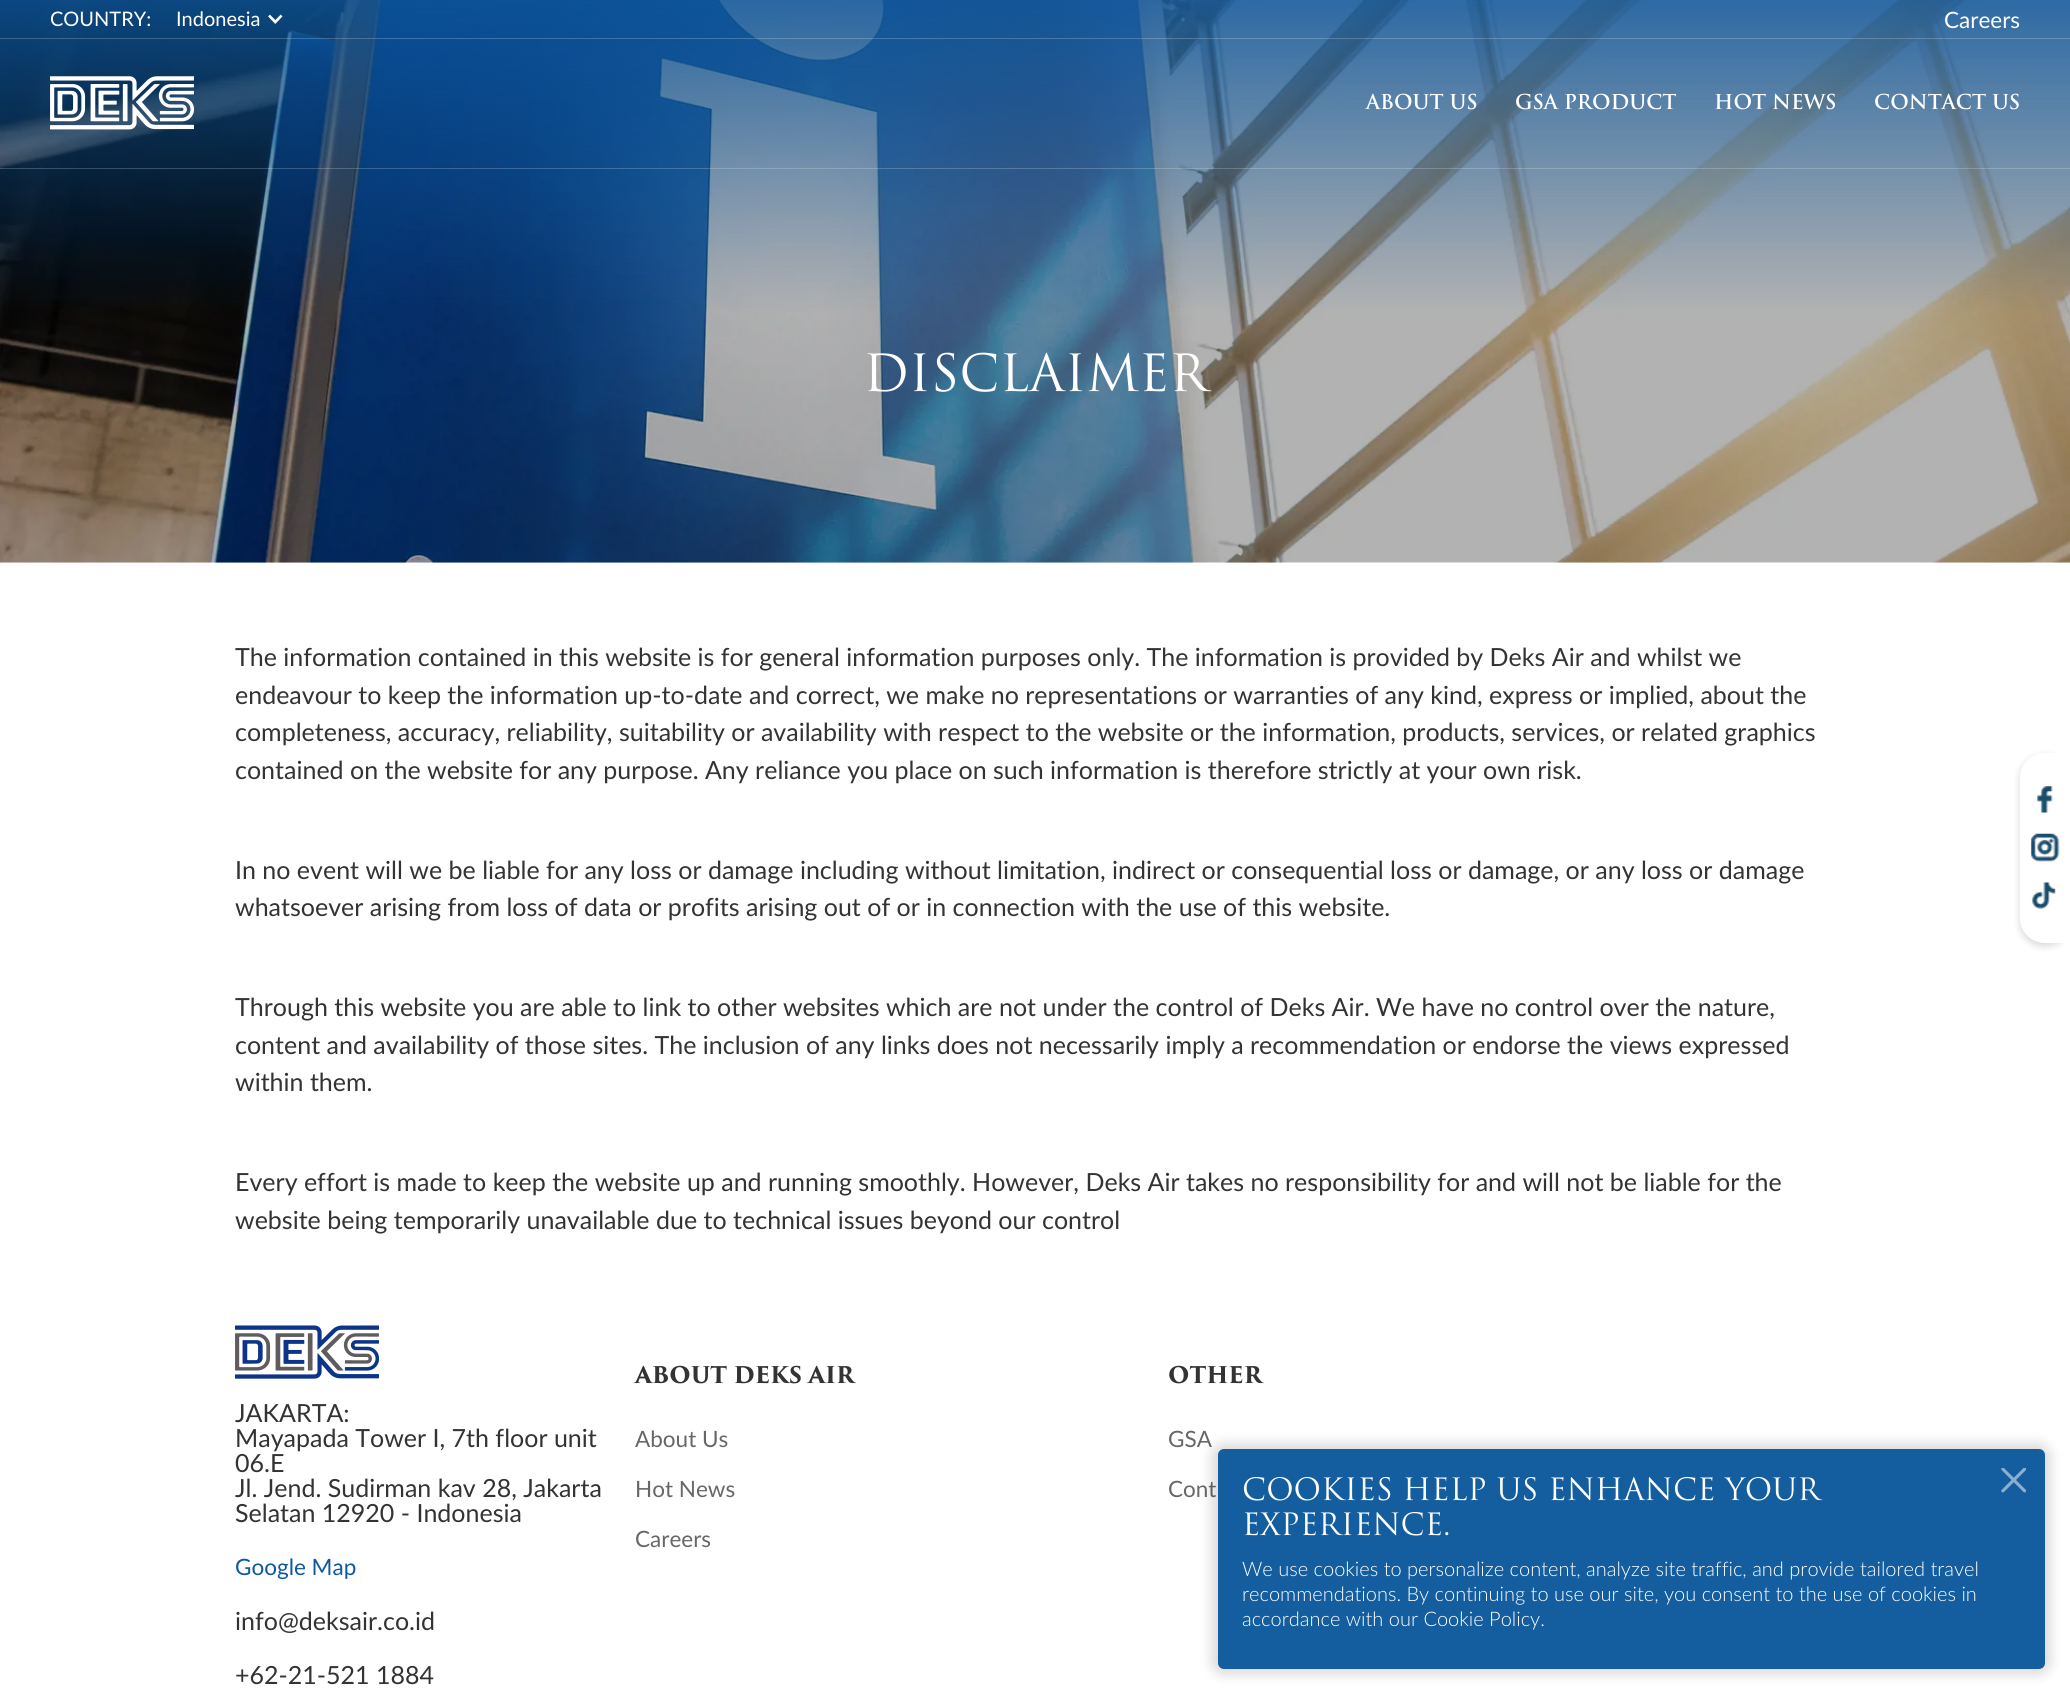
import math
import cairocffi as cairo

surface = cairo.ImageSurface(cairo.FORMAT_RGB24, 2070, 1693)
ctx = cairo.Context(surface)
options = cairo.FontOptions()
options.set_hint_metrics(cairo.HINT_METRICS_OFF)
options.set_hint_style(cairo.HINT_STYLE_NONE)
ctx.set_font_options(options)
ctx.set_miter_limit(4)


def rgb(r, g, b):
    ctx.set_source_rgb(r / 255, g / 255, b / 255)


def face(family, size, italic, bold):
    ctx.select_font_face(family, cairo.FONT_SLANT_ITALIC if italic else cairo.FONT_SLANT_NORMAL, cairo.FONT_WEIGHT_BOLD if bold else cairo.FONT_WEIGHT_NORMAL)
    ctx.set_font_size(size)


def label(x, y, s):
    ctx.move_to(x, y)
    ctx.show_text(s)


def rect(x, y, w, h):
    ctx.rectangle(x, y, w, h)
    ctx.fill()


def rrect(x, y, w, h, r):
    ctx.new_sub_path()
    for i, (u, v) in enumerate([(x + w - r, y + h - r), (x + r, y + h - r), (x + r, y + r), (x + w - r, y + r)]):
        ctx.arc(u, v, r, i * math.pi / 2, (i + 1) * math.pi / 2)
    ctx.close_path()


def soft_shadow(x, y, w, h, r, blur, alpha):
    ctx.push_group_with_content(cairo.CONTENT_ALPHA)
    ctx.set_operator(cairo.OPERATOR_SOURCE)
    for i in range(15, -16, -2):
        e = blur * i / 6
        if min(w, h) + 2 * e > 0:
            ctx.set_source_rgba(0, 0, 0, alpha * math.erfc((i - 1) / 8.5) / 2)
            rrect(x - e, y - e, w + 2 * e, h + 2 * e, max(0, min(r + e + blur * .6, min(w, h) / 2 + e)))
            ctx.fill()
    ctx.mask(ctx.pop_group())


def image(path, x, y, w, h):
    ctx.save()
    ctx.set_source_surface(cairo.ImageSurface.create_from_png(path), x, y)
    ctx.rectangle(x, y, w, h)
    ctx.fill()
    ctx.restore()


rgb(255, 255, 255)
ctx.paint()
image('image2.png', 0, 0, 2070, 563)
face('Lato', 20, 0, 0)
rgb(255, 255, 255)
label(50, 26, 'COUNTRY:')
label(176, 26, 'Indonesia')
image('image0.png', 268, 14, 15, 10)
face('Lato', 22.5, 0, 0)
label(1944, 28, 'Careers')
ctx.set_source_rgba(1, 1, 1, 0.2)
rect(0, 38, 2070, 1)
rect(0, 168, 2070, 1)
image('image1.png', 50, 76, 144, 54)
face('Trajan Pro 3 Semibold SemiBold', 20, 0, 0)
rgb(255, 255, 255)
label(1366, 109, 'ABOUT US')
label(1515, 109, 'GSA PRODUCT')
label(1714, 109, 'HOT NEWS')
label(1874, 109, 'CONTACT US')
face('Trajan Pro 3', 50, 0, 0)
label(863, 391, 'DISCLAIMER')
face('Lato', 25, 0, 0)
rgb(51, 51, 51)
label(235, 666, 'The information contained in this website is for general information purposes only. The information is provided by Deks Air and whilst we')
label(235, 704, 'endeavour to keep the information up-to-date and correct, we make no representations or warranties of any kind, express or implied, about the')
label(235, 741, 'completeness, accuracy, reliability, suitability or availability with respect to the website or the information, products, services, or related graphics')
label(235, 779, 'contained on the website for any purpose. Any reliance you place on such information is therefore strictly at your own risk.')
label(235, 879, 'In no event will we be liable for any loss or damage including without limitation, indirect or consequential loss or damage, or any loss or damage')
label(235, 916, 'whatsoever arising from loss of data or profits arising out of or in connection with the use of this website.')
label(235, 1016, 'Through this website you are able to link to other websites which are not under the control of Deks Air. We have no control over the nature,')
label(235, 1054, 'content and availability of those sites. The inclusion of any links does not necessarily imply a recommendation or endorse the views expressed')
label(235, 1091, 'within them.')
label(235, 1191, 'Every effort is made to keep the website up and running smoothly. However, Deks Air takes no responsibility for and will not be liable for the')
label(235, 1229, 'website being temporarily unavailable due to technical issues beyond our control')
rgb(0, 0, 0)
soft_shadow(2020, 756, 50, 190, 25, 4, 0.16)
rgb(255, 255, 255)
ctx.new_path()
ctx.move_to(2045, 753)
ctx.line_to(2070, 753)
ctx.line_to(2070, 943)
ctx.line_to(2045, 943)
ctx.curve_to(2031, 943, 2020, 932, 2020, 918)
ctx.line_to(2020, 778)
ctx.curve_to(2020, 764, 2031, 753, 2045, 753)
ctx.close_path()
ctx.fill()
image('image3.png', 2037, 786, 16, 27)
image('image4.png', 2031, 833, 29, 29)
image('image5.png', 2032, 882, 24, 27)
image('image6.png', 235, 1325, 144, 54)
rgb(51, 51, 51)
label(235, 1422, 'JAKARTA:')
label(235, 1447, 'Mayapada Tower I, 7th floor unit')
label(235, 1472, '06.E')
label(235, 1497, 'Jl. Jend. Sudirman kav 28, Jakarta')
label(235, 1522, 'Selatan 12920 - Indonesia')
face('Lato', 22.5, 0, 0)
rgb(12, 89, 160)
label(235, 1575, 'Google Map')
face('Lato', 25, 0, 0)
rgb(51, 51, 51)
label(235, 1630, 'info@deksair.co.id')
label(235, 1684, '+62-21-521 1884')
face('Trajan Pro 3', 22.5, 0, 1)
label(635, 1383, 'ABOUT DEKS AIR')
face('Lato', 22.5, 0, 0)
rgb(103, 103, 103)
label(635, 1447, 'About Us')
label(635, 1497, 'Hot News')
label(635, 1547, 'Careers')
face('Trajan Pro 3', 22.5, 0, 1)
rgb(51, 51, 51)
label(1168, 1383, 'OTHER')
face('Lato', 22.5, 0, 0)
rgb(103, 103, 103)
label(1168, 1447, 'GSA')
label(1168, 1497, 'Cont')
rgb(0, 0, 0)
soft_shadow(1211, 1443, 840, 232, 13, 6, 0.14)
rgb(20, 94, 159)
rrect(1218, 1449, 827, 220, 6)
ctx.fill()
face('Trajan Pro 3', 30, 0, 0)
rgb(255, 255, 255)
label(1242, 1500, 'COOKIES HELP US ENHANCE YOUR')
label(1242, 1535, 'EXPERIENCE.')
image('image7.png', 2001, 1468, 25, 25)
face('Lato Light', 20, 0, 0)
label(1242, 1576, 'We use cookies to personalize content, analyze site traffic, and provide tailored travel')
label(1242, 1601, 'recommendations. By continuing to use our site, you consent to the use of cookies in')
label(1242, 1626, 'accordance with our Cookie Policy.')
surface.write_to_png('render.png')
